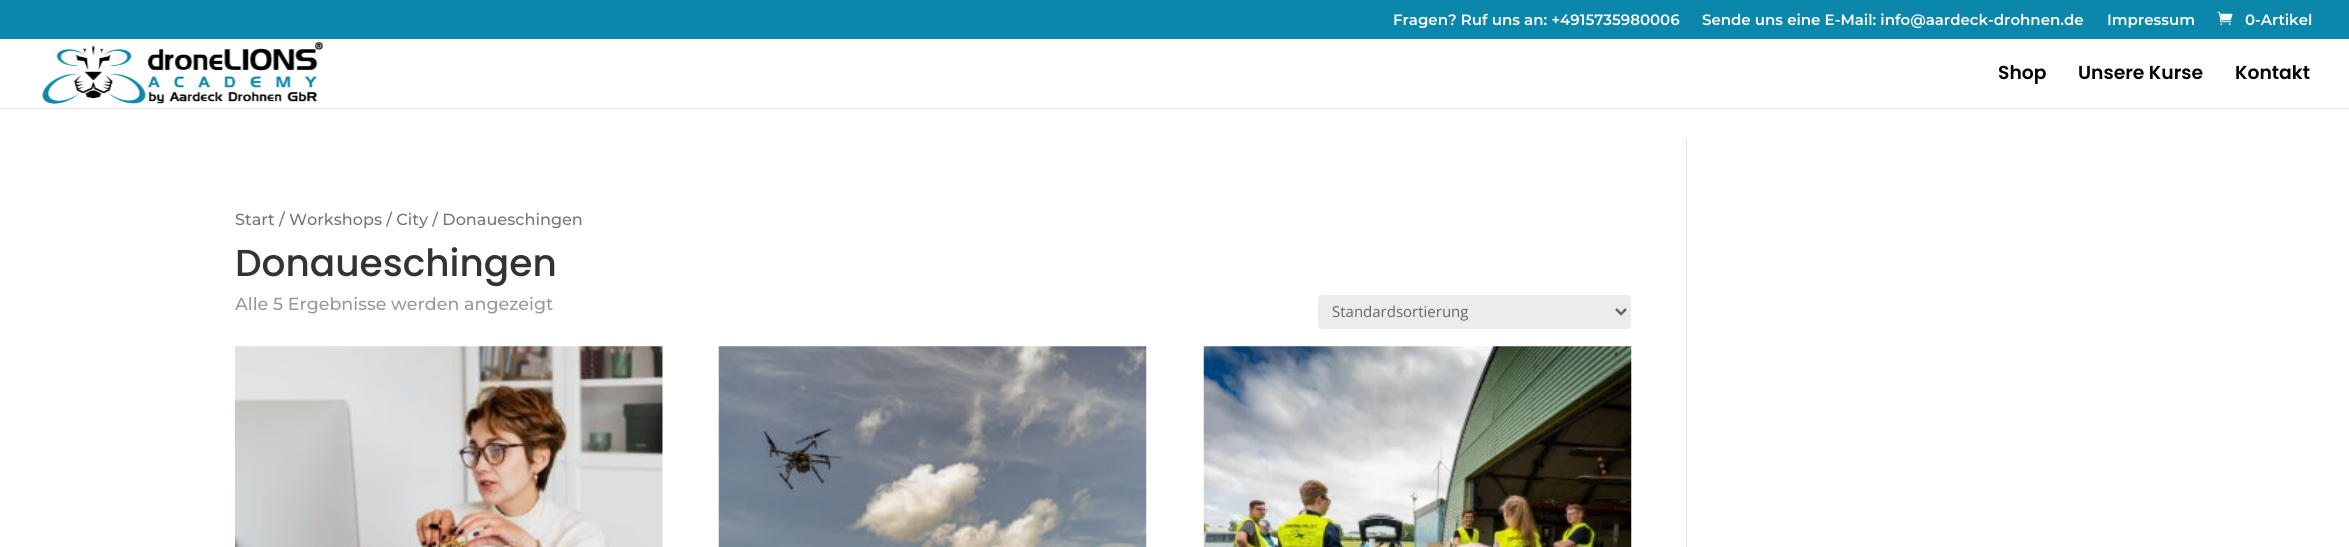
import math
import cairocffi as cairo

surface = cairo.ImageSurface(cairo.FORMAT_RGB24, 2349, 547)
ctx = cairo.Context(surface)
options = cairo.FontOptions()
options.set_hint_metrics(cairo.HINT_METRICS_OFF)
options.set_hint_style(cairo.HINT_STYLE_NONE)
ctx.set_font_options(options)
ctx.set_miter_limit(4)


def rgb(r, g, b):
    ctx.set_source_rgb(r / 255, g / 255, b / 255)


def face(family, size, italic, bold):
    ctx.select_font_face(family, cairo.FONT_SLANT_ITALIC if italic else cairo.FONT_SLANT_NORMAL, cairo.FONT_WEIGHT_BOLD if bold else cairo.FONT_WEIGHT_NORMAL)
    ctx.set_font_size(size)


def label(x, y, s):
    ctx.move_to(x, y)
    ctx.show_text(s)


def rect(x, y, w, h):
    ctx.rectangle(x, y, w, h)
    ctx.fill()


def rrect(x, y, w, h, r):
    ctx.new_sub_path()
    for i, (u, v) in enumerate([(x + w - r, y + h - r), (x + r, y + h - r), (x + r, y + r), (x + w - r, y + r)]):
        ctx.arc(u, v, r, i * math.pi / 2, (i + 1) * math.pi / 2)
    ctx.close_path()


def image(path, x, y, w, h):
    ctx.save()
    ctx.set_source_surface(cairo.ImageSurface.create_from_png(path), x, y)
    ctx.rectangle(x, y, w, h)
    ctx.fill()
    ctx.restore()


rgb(255, 255, 255)
ctx.paint()
rgb(11, 135, 171)
rect(0, 0, 2349, 39)
face('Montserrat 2 Thin', 15, 0, 0)
rgb(255, 255, 255)
label(1393, 25, 'Fragen? Ruf uns an: +4915735980006')
label(1702, 25, 'Sende uns eine E-Mail: info@aardeck-drohnen.de')
label(2107, 25, 'Impressum')
image('image0.png', 2217, 11, 16, 14)
label(2245, 25, '0-Artikel')
rgb(230, 230, 230)
rect(0, 108, 2349, 1)
image('image1.png', 42, 42, 282, 62)
face('Poppins SemiBold', 18.75, 0, 0)
rgb(2, 2, 2)
label(1998, 79, 'Shop')
label(2078, 79, 'Unsere Kurse')
label(2235, 79, 'Kontakt')
face('Montserrat Thin', 16.1, 0, 0)
rgb(118, 118, 118)
label(235, 225, 'Start / Workshops / City / Donaueschingen')
face('Poppins Medium', 37.5, 0, 0)
rgb(51, 51, 51)
label(235, 276, 'Donaueschingen')
face('Montserrat Thin', 17.5, 0, 0)
rgb(153, 153, 153)
label(235, 310, 'Alle 5 Ergebnisse werden angezeigt')
rgb(236, 236, 236)
rrect(1318, 295, 313, 34, 4)
ctx.fill()
ctx.new_path()
ctx.move_to(1616, 309)
ctx.line_to(1621, 314)
ctx.line_to(1626, 309)
rgb(102, 102, 102)
ctx.set_line_width(2.5)
ctx.stroke()
face('Open Sans', 15, 0, 0)
label(1332, 317, 'Standardsortierung')
image('image2.png', 235, 346, 428, 201)
image('image3.png', 718, 346, 429, 201)
image('image4.png', 1203, 346, 429, 201)
rgb(226, 226, 226)
rect(1686, 139, 1, 408)
surface.write_to_png('render.png')
